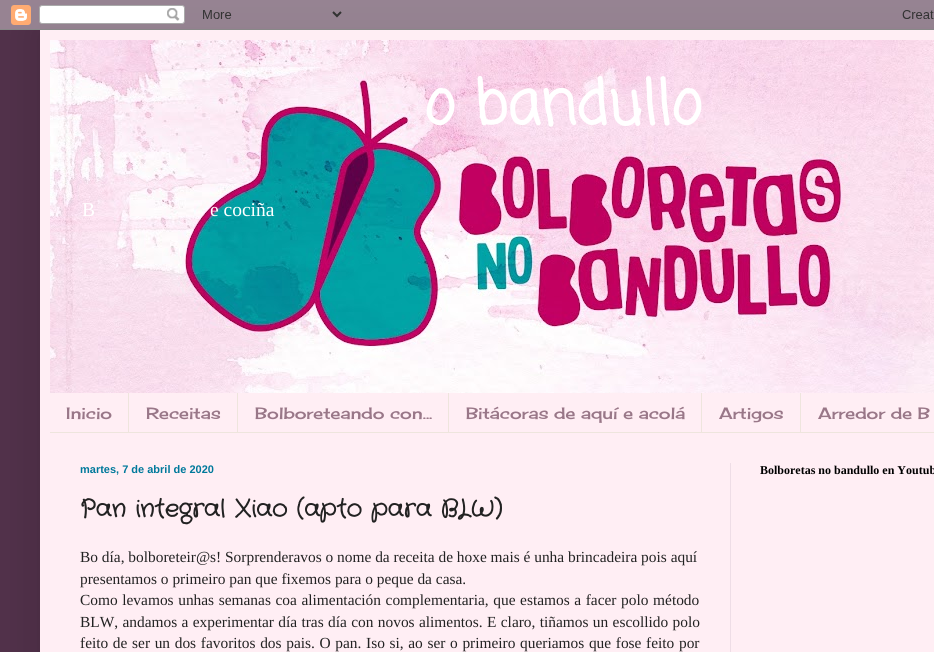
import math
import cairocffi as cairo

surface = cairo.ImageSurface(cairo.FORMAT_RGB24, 934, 652)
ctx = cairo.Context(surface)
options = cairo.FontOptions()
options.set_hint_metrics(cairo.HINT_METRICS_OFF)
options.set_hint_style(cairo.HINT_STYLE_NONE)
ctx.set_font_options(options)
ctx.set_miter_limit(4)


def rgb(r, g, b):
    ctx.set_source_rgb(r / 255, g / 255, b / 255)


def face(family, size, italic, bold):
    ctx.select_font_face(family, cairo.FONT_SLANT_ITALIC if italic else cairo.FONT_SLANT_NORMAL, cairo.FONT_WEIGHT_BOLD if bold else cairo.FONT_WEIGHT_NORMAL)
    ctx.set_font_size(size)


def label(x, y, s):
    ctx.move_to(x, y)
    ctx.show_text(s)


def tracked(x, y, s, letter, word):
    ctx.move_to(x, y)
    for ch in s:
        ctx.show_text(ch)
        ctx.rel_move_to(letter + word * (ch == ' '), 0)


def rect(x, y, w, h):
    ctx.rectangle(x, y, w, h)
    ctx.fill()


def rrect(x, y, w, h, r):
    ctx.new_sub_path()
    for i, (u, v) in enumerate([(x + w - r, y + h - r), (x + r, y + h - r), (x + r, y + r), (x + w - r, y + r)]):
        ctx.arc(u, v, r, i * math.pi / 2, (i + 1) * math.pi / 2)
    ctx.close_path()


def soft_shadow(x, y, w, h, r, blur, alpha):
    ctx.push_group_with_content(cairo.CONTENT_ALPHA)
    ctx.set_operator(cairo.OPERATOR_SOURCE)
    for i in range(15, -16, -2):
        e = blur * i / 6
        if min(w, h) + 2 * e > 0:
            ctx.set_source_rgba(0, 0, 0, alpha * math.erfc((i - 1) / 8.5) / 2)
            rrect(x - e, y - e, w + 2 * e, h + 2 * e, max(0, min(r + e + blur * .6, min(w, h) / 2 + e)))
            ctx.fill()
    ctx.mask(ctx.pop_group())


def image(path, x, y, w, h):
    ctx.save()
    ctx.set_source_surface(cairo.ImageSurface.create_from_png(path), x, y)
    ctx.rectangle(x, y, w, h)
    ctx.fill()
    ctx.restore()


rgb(81, 49, 74)
ctx.paint()
rgb(0, 0, 0)
soft_shadow(40, 30, 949, 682, 0, 20, 0.15)
image('image0.png', 0, 0, 934, 30)
rgb(255, 238, 244)
rect(40, 30, 894, 622)
image('image1.png', 50, 40, 884, 353)
face('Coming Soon', 60, 0, 1)
rgb(255, 255, 255)
label(424, 124, 'o bandullo')
face('Liberation Serif', 19.5, 0, 0)
label(82, 216, 'B')
label(210, 216, 'e cociña')
rgb(238, 229, 221)
rect(50, 432, 884, 1)
rect(128, 393, 1, 39)
face('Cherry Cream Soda', 16, 0, 0)
rgb(153, 119, 136)
label(66, 419, 'Inicio')
rgb(238, 229, 221)
rect(237, 393, 1, 39)
rgb(153, 119, 136)
label(146, 419, 'Receitas')
rgb(238, 229, 221)
rect(448, 393, 1, 39)
rgb(153, 119, 136)
label(255, 419, 'Bolboreteando con...')
rgb(238, 229, 221)
rect(701, 393, 1, 39)
rgb(153, 119, 136)
label(466, 419, 'Bitácoras de aquí e acolá')
rgb(238, 229, 221)
rect(800, 393, 1, 39)
rgb(153, 119, 136)
label(719, 419, 'Artigos')
label(818, 419, 'Arredor de B')
rgb(238, 221, 230)
rect(730, 463, 1, 189)
face('Liberation Sans', 11, 0, 1)
rgb(0, 121, 155)
label(80, 473, 'martes, 7 de abril de 2020')
face('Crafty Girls', 24, 0, 1)
rgb(34, 34, 34)
label(80, 516, 'Pan integral Xiao (apto para BLW)')
face('Liberation Serif', 15.4, 0, 0)
label(80, 562, 'Bo día, bolboreteir@s! Sorprenderavos o nome da receita de hoxe mais é unha brincadeira pois aquí')
label(80, 584, 'presentamos o primeiro pan que fixemos para o peque da casa.')
tracked(80, 605, 'Como levamos unhas semanas coa alimentación complementaria, que estamos a facer polo método', 0, 0.75)
tracked(80, 627, 'BLW, andamos a experimentar día tras día con novos alimentos. E claro, tiñamos un escollido polo', 0, 0.5)
tracked(80, 648, 'feito de ser un dos favoritos dos pais. O pan. Iso si, ao ser o primeiro queriamos que fose feito por', 0, 0.8)
face('Liberation Serif', 12, 0, 1)
rgb(0, 0, 0)
label(760, 474, 'Bolboretas no bandullo en Youtub')
surface.write_to_png('render.png')
